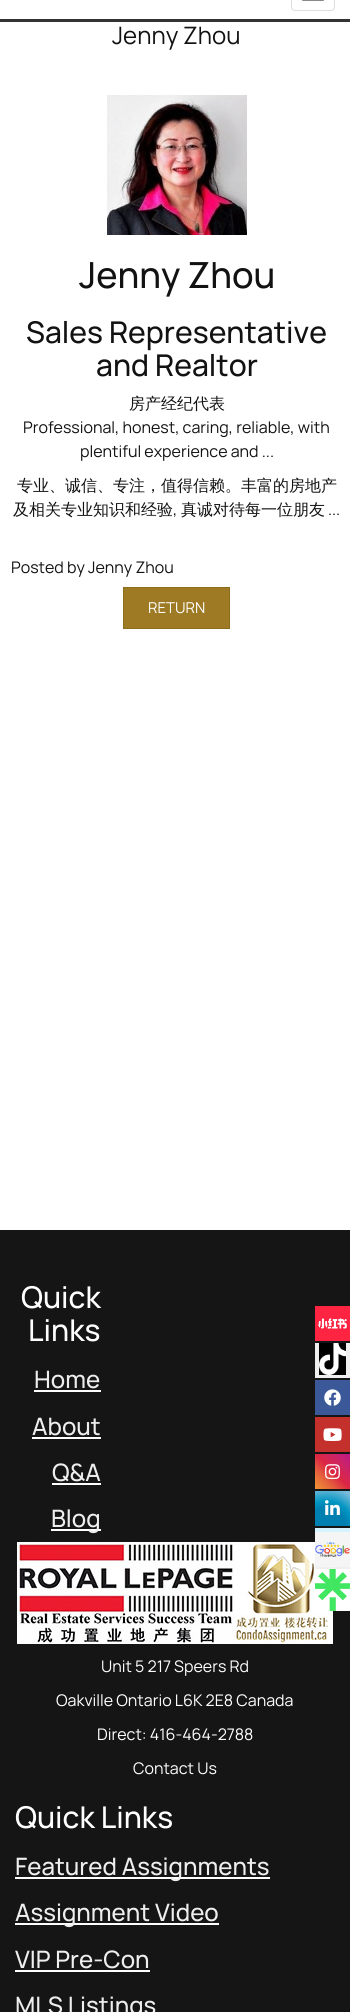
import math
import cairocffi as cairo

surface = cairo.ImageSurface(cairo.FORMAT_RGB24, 350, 2012)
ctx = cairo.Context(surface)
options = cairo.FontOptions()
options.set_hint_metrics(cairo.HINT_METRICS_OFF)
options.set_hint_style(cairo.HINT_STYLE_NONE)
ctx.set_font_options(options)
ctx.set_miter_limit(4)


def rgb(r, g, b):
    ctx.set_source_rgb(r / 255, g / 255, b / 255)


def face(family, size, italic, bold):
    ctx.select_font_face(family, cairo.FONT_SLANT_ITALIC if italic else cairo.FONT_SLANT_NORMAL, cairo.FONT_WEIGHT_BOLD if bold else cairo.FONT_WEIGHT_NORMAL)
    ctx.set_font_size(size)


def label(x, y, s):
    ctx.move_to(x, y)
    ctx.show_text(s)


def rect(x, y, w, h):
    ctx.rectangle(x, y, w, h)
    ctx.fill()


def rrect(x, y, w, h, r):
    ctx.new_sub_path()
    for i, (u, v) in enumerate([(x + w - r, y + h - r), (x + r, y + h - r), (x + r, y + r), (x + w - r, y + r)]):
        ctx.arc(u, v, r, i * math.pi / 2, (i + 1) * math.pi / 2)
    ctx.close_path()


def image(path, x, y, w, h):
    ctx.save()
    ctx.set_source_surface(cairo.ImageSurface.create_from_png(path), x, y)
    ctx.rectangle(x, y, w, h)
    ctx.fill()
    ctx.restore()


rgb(255, 255, 255)
ctx.paint()
rgb(51, 51, 51)
rect(0, 19, 350, 3)
rrect(291.5, -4.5, 43, 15, 3.5)
rgb(221, 221, 221)
ctx.set_line_width(1)
ctx.stroke()
rgb(136, 136, 136)
rrect(302, -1, 22, 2, 1)
ctx.fill()
rgb(21, 21, 21)
rect(0, 1230, 350, 782)
image('image0.png', 315, 1306, 35, 35)
rgb(239, 239, 239)
rect(315, 1343, 35, 35)
image('image1.png', 319, 1343, 27, 32)
rgb(59, 89, 152)
rect(315, 1380, 35, 35)
image('image2.png', 324, 1389, 17, 17)
rgb(196, 48, 43)
rect(315, 1417, 35, 35)
image('image3.png', 323, 1428, 19, 13)
gradient = cairo.LinearGradient(315, 1489, 350, 1454)
gradient.add_color_stop_rgba(0, 0.941, 0.58, 0.2, 1)
gradient.add_color_stop_rgba(0.25, 0.902, 0.408, 0.235, 1)
gradient.add_color_stop_rgba(0.5, 0.863, 0.153, 0.263, 1)
gradient.add_color_stop_rgba(0.75, 0.8, 0.137, 0.4, 1)
gradient.add_color_stop_rgba(1, 0.737, 0.094, 0.533, 1)
ctx.set_source(gradient)
rect(315, 1454, 35, 35)
image('image4.png', 325, 1464, 15, 16)
gradient = cairo.RadialGradient(326, 1528, 0, 326, 1528, 45)
gradient.add_color_stop_rgba(0, 0.514, 0.745, 0.863, 1)
gradient.add_color_stop_rgba(0.05, 0, 0.498, 0.694, 1)
gradient.add_color_stop_rgba(0.45, 0, 0.498, 0.694, 1)
gradient.add_color_stop_rgba(0.6, 0, 0.584, 0.761, 1)
gradient.add_color_stop_rgba(0.9, 0.467, 0.729, 0.851, 1)
ctx.set_source(gradient)
rect(315, 1491, 35, 35)
image('image5.png', 325, 1500, 15, 15)
rgb(213, 244, 255)
rect(315, 1528, 35, 4)
image('image9.png', 17, 1542, 316, 102)
image('image6.png', 315, 1532, 35, 35)
rgb(239, 239, 239)
rect(315, 1567, 35, 2)
image('image7.png', 315, 1569, 35, 42)
face('Manrope', 24, 0, 0)
rgb(18, 18, 18)
label(112, 44, 'Jenny Zhou')
image('image8.png', 107, 95, 140, 140)
face('Manrope Medium', 36, 0, 0)
label(79, 288, 'Jenny Zhou')
face('Manrope Medium', 30, 0, 0)
label(26, 343, 'Sales Representative')
label(96, 376, 'and Realtor')
face('WenQuanYi Zen Hei Medium', 16, 0, 0)
label(129, 409, '房产经纪代表')
face('Manrope', 16, 0, 0)
label(23, 433, 'Professional, honest, caring, reliable, with')
label(80, 457, 'plentiful experience and ...')
face('WenQuanYi Zen Hei Medium', 16, 0, 0)
label(17, 491, '专业、诚信、专注，值得信赖。丰富的房地产')
label(13, 515, '及相关专业知识和经验')
face('Manrope', 16, 0, 0)
label(173, 515, ',')
face('WenQuanYi Zen Hei Medium', 16, 0, 0)
label(181, 515, '真诚对待每一位朋友')
face('Manrope', 16, 0, 0)
label(328, 515, '...')
label(11, 573, 'Posted by Jenny Zhou')
rgb(158, 122, 36)
ctx.rectangle(123.5, 587.5, 106, 41)
ctx.fill_preserve()
rgb(142, 108, 27)
ctx.stroke()
face('Manrope', 15, 0, 0)
rgb(255, 255, 255)
label(148, 613, 'RETURN')
face('Manrope Medium', 30, 0, 0)
label(21, 1308, 'Quick')
label(28, 1341, 'Links')
face('Manrope Medium', 24, 0, 0)
rgb(238, 238, 238)
label(34, 1388, 'Home')
rgb(255, 255, 255)
rect(34, 1390, 67, 2)
rgb(238, 238, 238)
label(32, 1435, 'About')
rgb(255, 255, 255)
rect(32, 1437, 69, 2)
rgb(238, 238, 238)
label(52, 1481, 'Q&A')
rgb(255, 255, 255)
rect(52, 1483, 49, 2)
rect(51, 1529, 50, 2)
rgb(238, 238, 238)
label(51, 1527, 'Blog')
face('Manrope', 16, 0, 0)
rgb(255, 255, 255)
label(101, 1672, 'Unit 5 217 Speers Rd')
label(56, 1706, 'Oakville Ontario L6K 2E8 Canada')
label(97, 1740, 'Direct: 416-464-2788')
label(133, 1774, 'Contact Us')
face('Manrope Medium', 30, 0, 0)
label(15, 1828, 'Quick Links')
rect(15, 1877, 255, 2)
face('Manrope Medium', 24, 0, 0)
rgb(238, 238, 238)
label(15, 1875, 'Featured Assignments')
rgb(255, 255, 255)
rect(15, 1923, 204, 2)
rgb(238, 238, 238)
label(15, 1921, 'Assignment Video')
label(15, 1968, 'VIP Pre-Con')
rgb(255, 255, 255)
rect(15, 1970, 135, 2)
rgb(238, 238, 238)
label(15, 2014, 'MLS Listings')
surface.write_to_png('render.png')
